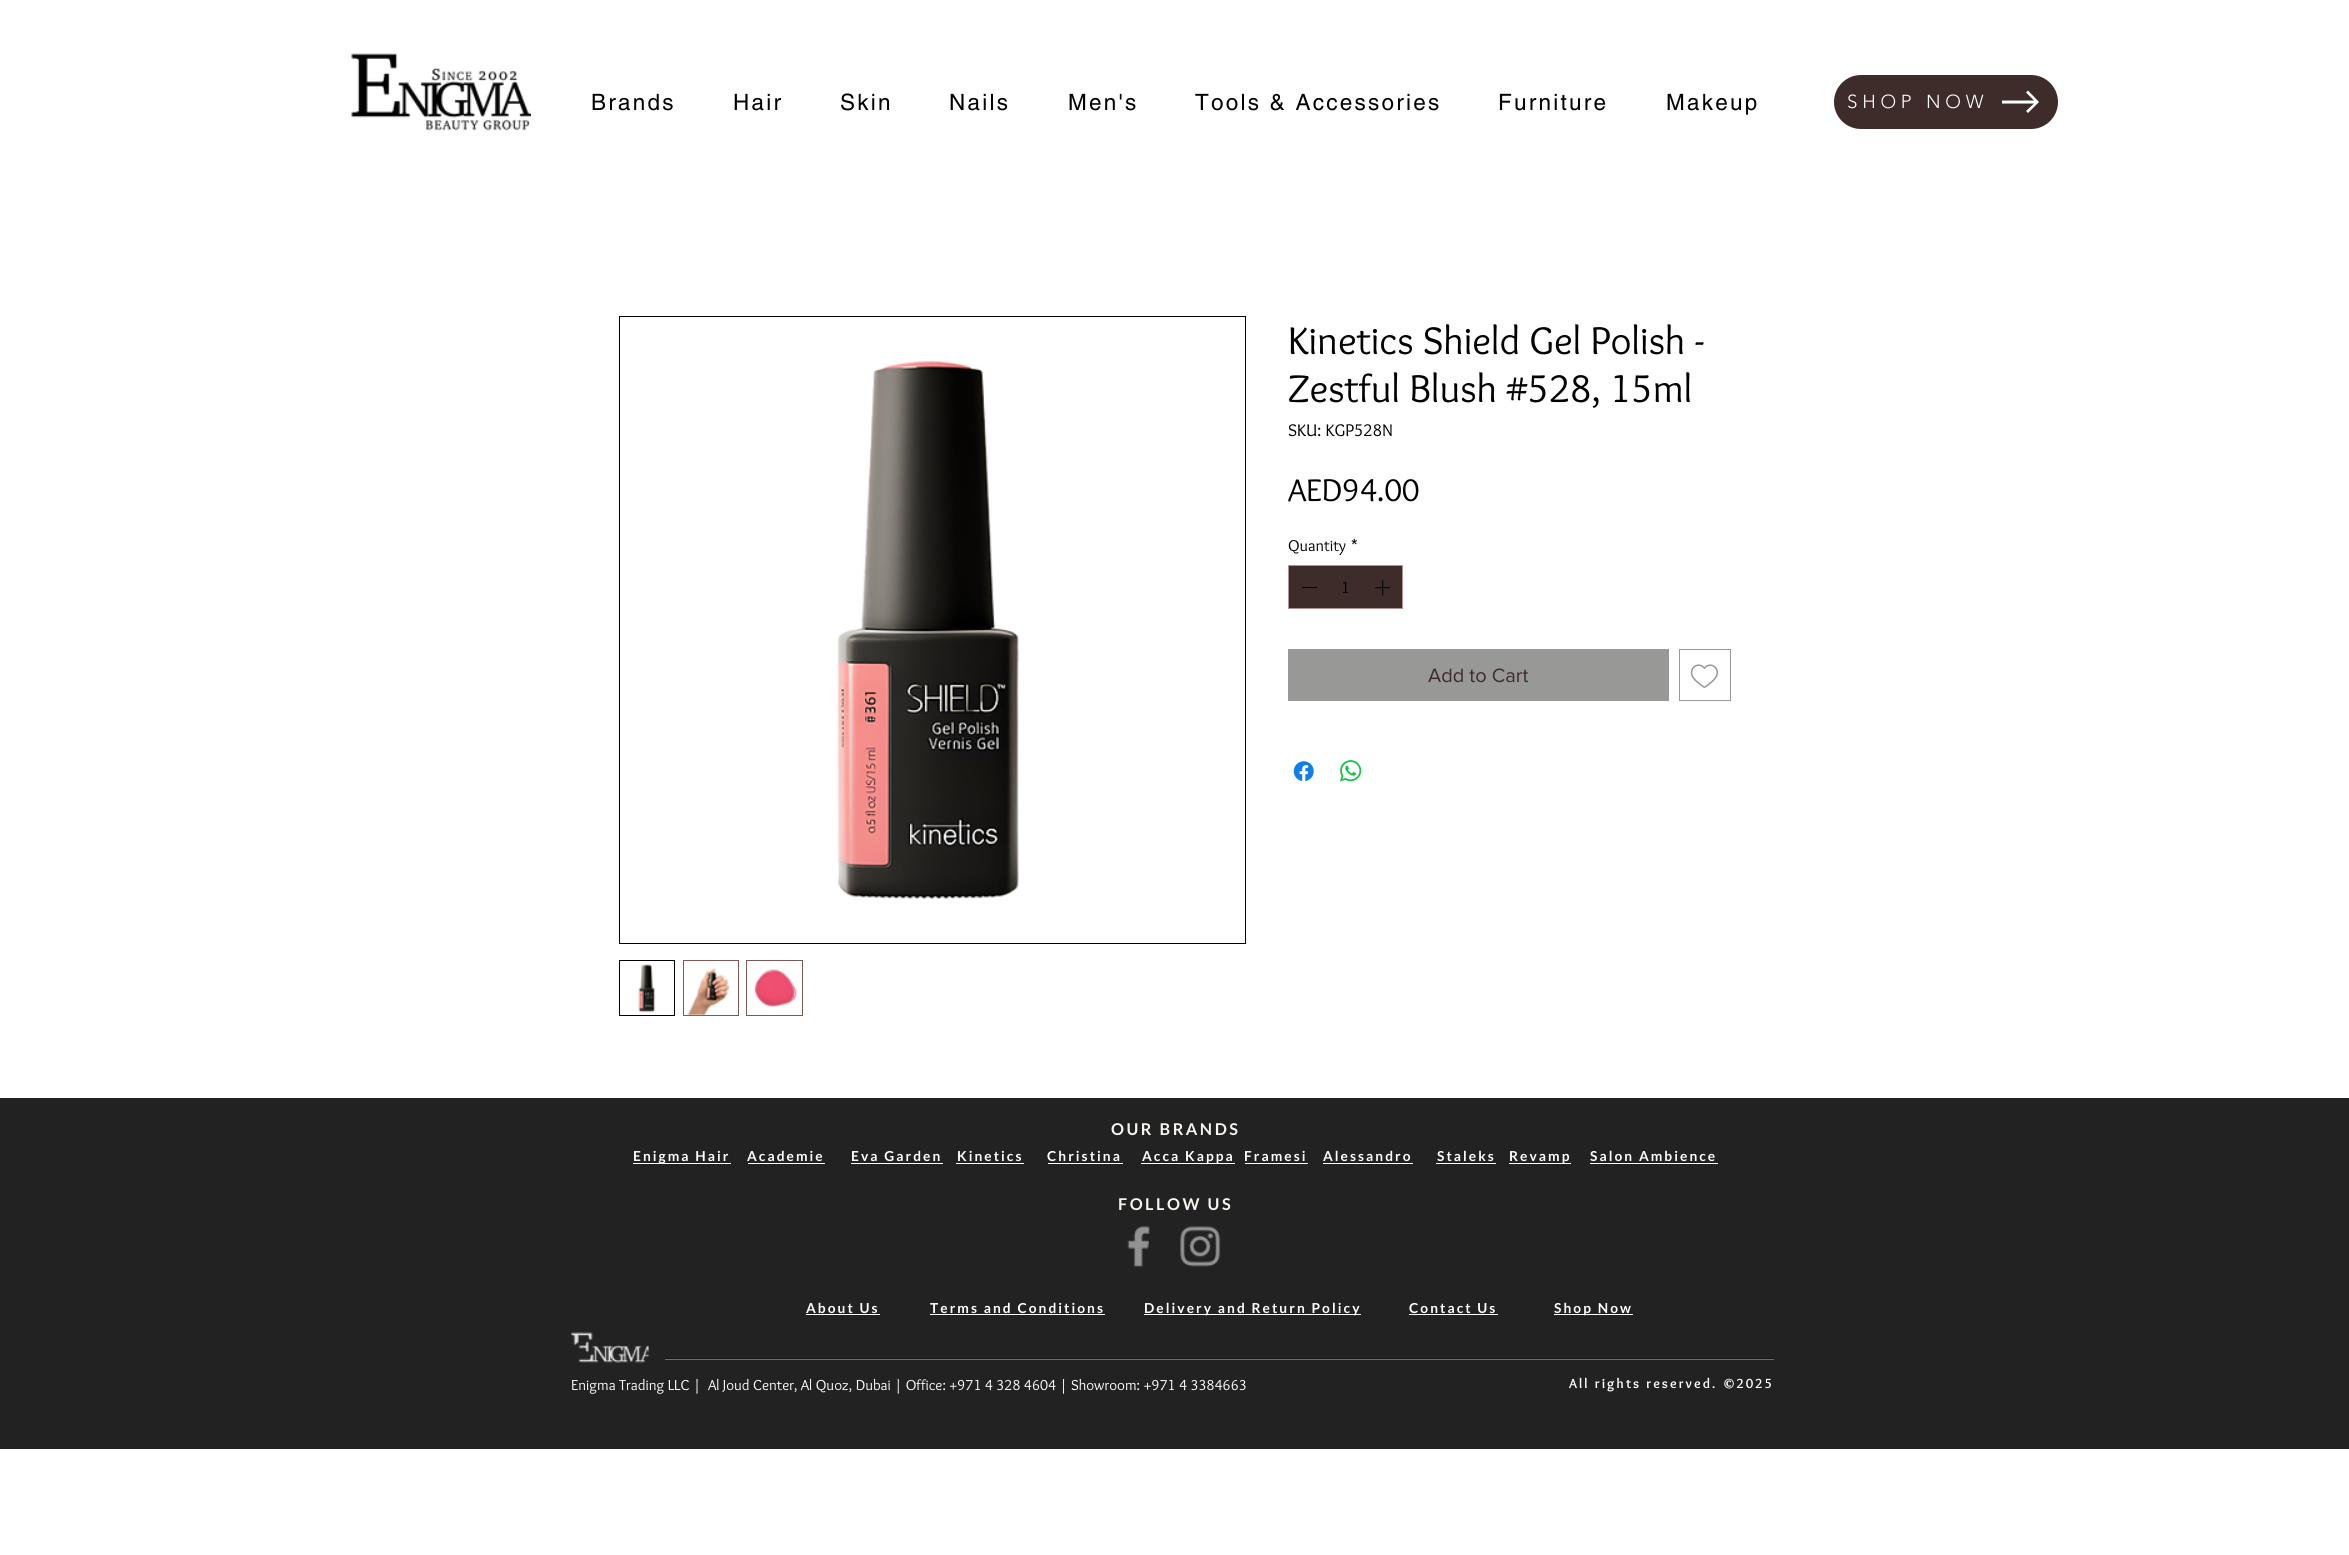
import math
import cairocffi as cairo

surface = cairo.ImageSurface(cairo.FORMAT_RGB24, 2349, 1555)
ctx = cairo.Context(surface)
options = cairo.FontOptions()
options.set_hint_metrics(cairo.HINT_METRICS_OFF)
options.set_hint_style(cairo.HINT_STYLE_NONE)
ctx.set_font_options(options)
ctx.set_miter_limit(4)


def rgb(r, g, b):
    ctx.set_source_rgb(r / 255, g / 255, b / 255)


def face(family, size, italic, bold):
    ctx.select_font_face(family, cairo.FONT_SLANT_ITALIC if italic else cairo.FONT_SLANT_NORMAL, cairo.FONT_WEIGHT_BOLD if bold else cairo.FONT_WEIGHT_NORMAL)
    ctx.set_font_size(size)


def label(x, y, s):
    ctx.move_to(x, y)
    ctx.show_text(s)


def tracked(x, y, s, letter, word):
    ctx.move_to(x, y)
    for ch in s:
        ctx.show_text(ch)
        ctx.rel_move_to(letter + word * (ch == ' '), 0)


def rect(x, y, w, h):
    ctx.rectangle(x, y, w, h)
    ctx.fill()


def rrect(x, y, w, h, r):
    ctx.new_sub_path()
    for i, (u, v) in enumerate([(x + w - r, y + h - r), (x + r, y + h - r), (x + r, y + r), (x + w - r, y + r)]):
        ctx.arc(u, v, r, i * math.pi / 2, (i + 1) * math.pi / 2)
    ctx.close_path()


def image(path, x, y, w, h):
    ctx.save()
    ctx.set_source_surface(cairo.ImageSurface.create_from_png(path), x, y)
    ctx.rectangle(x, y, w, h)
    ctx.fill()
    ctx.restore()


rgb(255, 255, 255)
ctx.paint()
image('image0.png', 351, 53, 180, 78)
face('helvetica', 22.5, 0, 0)
rgb(0, 0, 0)
tracked(591, 110, 'Brands', 2.25, 0)
tracked(733, 110, 'Hair', 2.25, 0)
tracked(840, 110, 'Skin', 2.25, 0)
tracked(949, 110, 'Nails', 2.25, 0)
tracked(1068, 110, 'Men\'s', 2.25, 0)
tracked(1195, 110, 'Tools & Accessories', 2.25, 0)
tracked(1498, 110, 'Furniture', 2.25, 0)
tracked(1666, 110, 'Makeup', 2.25, 0)
rgb(61, 44, 42)
rrect(1834, 75, 224, 54, 27)
ctx.fill()
face('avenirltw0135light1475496 Light', 18.75, 0, 0)
rgb(255, 255, 255)
tracked(1847, 108, 'SHOP NOW', 4.75, 0)
ctx.set_fill_rule(cairo.FILL_RULE_EVEN_ODD)
ctx.new_path()
ctx.move_to(2028, 90.5)
ctx.line_to(2026, 92.5)
ctx.line_to(2034, 100.5)
ctx.line_to(2002, 100.5)
ctx.line_to(2002, 103.5)
ctx.line_to(2034, 103.5)
ctx.line_to(2026, 111)
ctx.line_to(2028, 113)
ctx.line_to(2039, 102)
ctx.close_path()
ctx.fill()
ctx.rectangle(619.5, 316.5, 626, 627)
rgb(0, 0, 0)
ctx.set_line_width(1)
ctx.stroke()
image('image1.png', 837, 360, 182, 539)
ctx.rectangle(619.5, 960.5, 55, 55)
ctx.stroke()
image('image2.png', 638, 964, 18, 49)
ctx.rectangle(683.5, 960.5, 55, 55)
rgb(123, 89, 85)
ctx.stroke()
image('image3.png', 687, 968, 43, 48)
ctx.rectangle(746.5, 960.5, 56, 55)
ctx.stroke()
image('image4.png', 754, 968, 43, 39)
face('Overlock', 40, 0, 0)
rgb(0, 0, 0)
label(1288, 354, 'Kinetics Shield Gel Polish -')
label(1288, 402, 'Zestful Blush #528, 15ml')
face('Overlock', 17.5, 0, 0)
label(1288, 436, 'SKU: KGP528N')
face('Overlock', 32.5, 0, 0)
label(1288, 501, 'AED94.00')
face('Overlock', 16.25, 0, 0)
label(1288, 551, 'Quantity')
label(1351, 551, '*')
rgb(61, 44, 42)
ctx.rectangle(1288.5, 565.5, 114, 43)
ctx.fill_preserve()
rgb(175, 147, 144)
ctx.stroke()
rgb(0, 0, 0)
rect(1302, 587, 15, 1)
label(1341, 593, '1')
image('image5.png', 1375, 580, 16, 16)
rgb(152, 152, 151)
rect(1288, 649, 381, 52)
face('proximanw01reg', 20, 0, 0)
rgb(61, 44, 42)
label(1428, 682, 'Add to Cart')
ctx.rectangle(1679.5, 649.5, 51, 51)
rgb(152, 152, 151)
ctx.stroke()
image('image6.png', 1690, 664, 28, 24)
image('image7.png', 1293, 761, 21, 21)
image('image8.png', 1340, 760, 22, 22)
rgb(34, 34, 34)
rect(0, 1098, 2349, 351)
face('Lato', 16.25, 0, 1)
rgb(248, 244, 240)
tracked(1111, 1135, 'OUR BRANDS', 2.5, 0)
rgb(255, 255, 255)
rect(633, 1163, 98, 1)
face('Lato', 13.75, 0, 1)
tracked(633, 1161, 'Enigma Hair', 2.05, 0)
tracked(747, 1161, 'Academie', 2.05, 0)
rect(748, 1163, 77, 1)
tracked(851, 1161, 'Eva Garden', 2.05, 0)
rect(851, 1163, 92, 1)
tracked(957, 1161, 'Kinetics', 2.05, 0)
rect(956, 1163, 68, 1)
tracked(1047, 1161, 'Christina', 2.05, 0)
rect(1048, 1163, 75, 1)
rect(1141, 1163, 94, 1)
tracked(1142, 1161, 'Acca Kappa', 2.05, 0)
tracked(1244, 1161, 'Framesi', 2.05, 0)
rect(1245, 1163, 63, 1)
tracked(1323, 1161, 'Alessandro', 2.05, 0)
rect(1323, 1163, 90, 1)
tracked(1437, 1161, 'Staleks', 2.05, 0)
rect(1436, 1163, 60, 1)
rect(1509, 1163, 62, 1)
tracked(1509, 1161, 'Revamp', 2.05, 0)
tracked(1590, 1161, 'Salon Ambience', 2.05, 0)
rect(1590, 1163, 128, 1)
face('Lato', 16.25, 0, 1)
rgb(248, 244, 240)
tracked(1118, 1210, 'FOLLOW US', 2.5, 0)
image('image9.png', 1127, 1226, 23, 41)
image('image10.png', 1180, 1226, 41, 41)
face('Lato', 13.75, 0, 1)
rgb(255, 255, 255)
tracked(806, 1313, 'About Us', 2.05, 0)
rect(806, 1314, 74, 1)
tracked(930, 1313, 'Terms and Conditions', 2.05, 0)
rect(930, 1314, 175, 1)
rect(1144, 1314, 217, 1)
tracked(1144, 1313, 'Delivery and Return Policy', 2.05, 0)
tracked(1409, 1313, 'Contact Us', 2.05, 0)
rect(1409, 1314, 89, 1)
rect(1554, 1314, 79, 1)
tracked(1554, 1313, 'Shop Now', 2.05, 0)
image('image11.png', 571, 1332, 78, 31)
rgb(22, 22, 22)
rect(665, 1358, 1109, 1)
rgb(111, 111, 111)
rect(665, 1359, 1109, 1)
face('Overlock', 15, 0, 0)
rgb(255, 255, 255)
label(571, 1390, 'Enigma Trading LLC |  Al Joud Center, Al Quoz, Dubai | Office: +971 4 328 4604 | Showroom: +971 4 3384663')
face('Overlock', 13.75, 0, 1)
tracked(1569, 1388, 'All rights reserved. ©2025', 2.05, 0)
surface.write_to_png('render.png')
